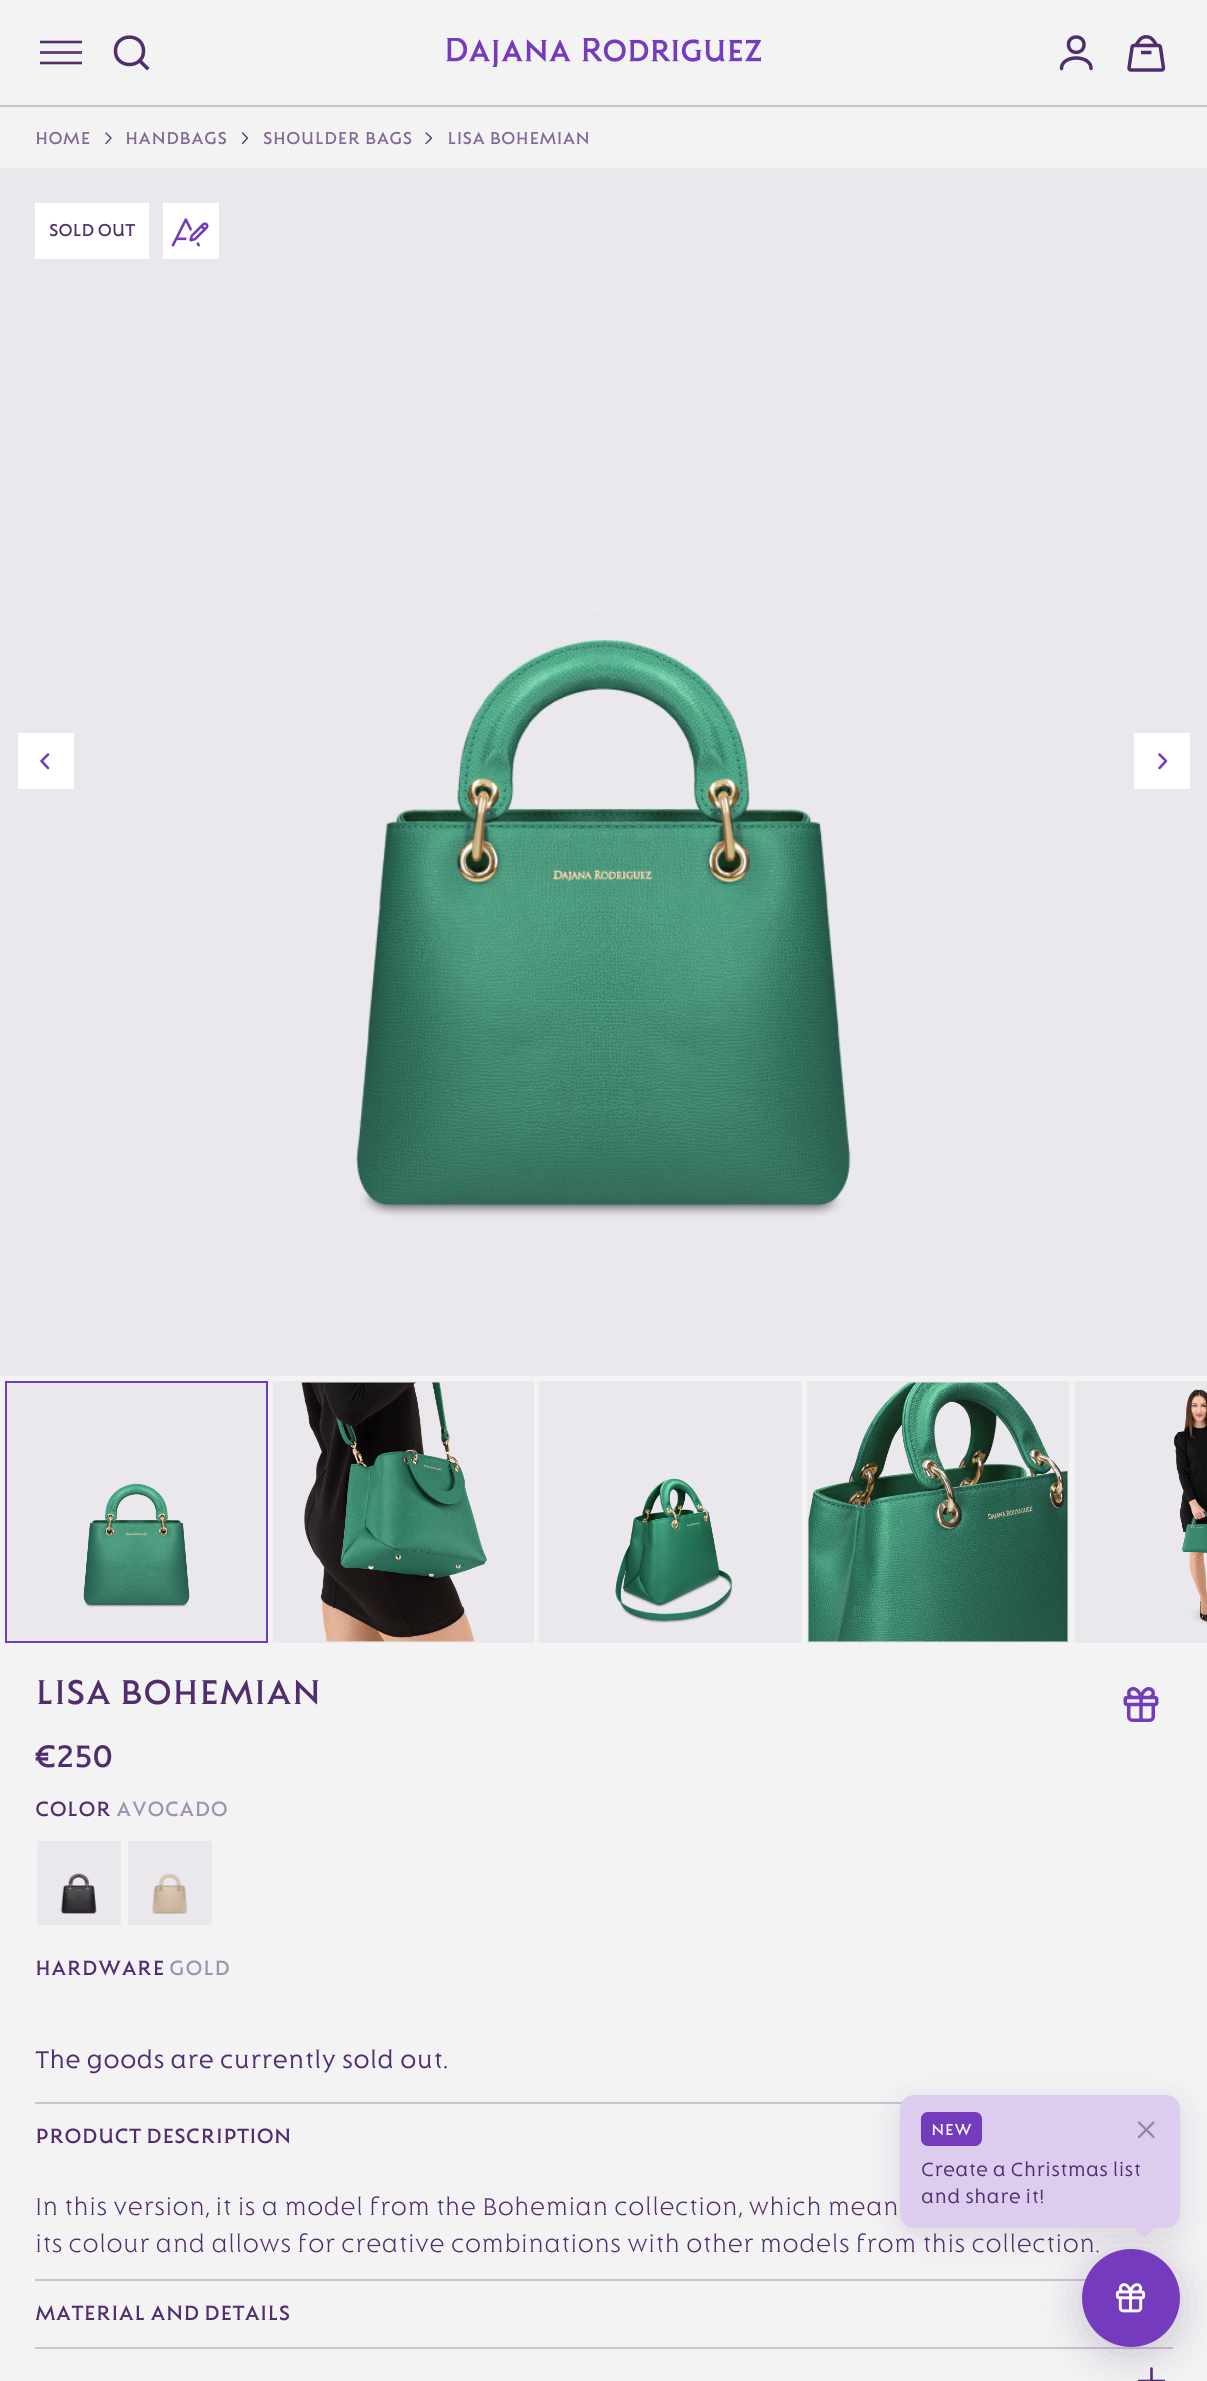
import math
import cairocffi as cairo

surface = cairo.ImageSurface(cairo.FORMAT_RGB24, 1207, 2381)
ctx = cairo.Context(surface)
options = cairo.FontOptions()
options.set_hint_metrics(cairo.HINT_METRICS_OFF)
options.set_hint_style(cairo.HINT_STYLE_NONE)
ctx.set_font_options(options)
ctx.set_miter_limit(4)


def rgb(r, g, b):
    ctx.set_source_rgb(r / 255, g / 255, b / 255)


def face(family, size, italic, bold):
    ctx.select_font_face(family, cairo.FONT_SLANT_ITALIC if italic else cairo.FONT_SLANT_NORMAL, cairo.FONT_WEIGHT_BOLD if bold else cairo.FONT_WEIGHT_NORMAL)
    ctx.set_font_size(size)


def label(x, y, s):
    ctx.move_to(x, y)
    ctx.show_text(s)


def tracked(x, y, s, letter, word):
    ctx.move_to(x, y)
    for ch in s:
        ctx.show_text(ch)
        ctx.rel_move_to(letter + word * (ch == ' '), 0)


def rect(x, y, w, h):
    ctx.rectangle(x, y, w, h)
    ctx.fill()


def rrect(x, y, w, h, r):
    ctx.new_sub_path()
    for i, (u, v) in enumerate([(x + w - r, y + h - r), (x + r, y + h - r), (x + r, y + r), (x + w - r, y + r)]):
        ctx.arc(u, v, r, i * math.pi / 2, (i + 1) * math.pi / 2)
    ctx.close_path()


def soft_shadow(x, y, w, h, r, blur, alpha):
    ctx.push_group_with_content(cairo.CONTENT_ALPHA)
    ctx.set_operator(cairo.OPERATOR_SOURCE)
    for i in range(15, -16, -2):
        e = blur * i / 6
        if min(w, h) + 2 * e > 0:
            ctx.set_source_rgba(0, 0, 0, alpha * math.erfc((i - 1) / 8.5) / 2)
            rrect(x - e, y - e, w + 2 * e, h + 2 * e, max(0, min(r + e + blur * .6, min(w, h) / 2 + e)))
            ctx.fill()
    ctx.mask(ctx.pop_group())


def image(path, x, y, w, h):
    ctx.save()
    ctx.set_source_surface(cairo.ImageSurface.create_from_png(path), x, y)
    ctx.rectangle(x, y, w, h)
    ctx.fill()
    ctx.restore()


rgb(243, 243, 243)
ctx.paint()
rgb(203, 194, 212)
rect(0, 105, 1207, 2)
ctx.new_path()
ctx.move_to(40, 42)
ctx.line_to(82, 42)
rgb(81, 45, 110)
ctx.set_line_width(2.6)
ctx.stroke()
rgb(103, 71, 128)
rect(40, 51, 42, 3)
ctx.new_path()
ctx.move_to(40, 63)
ctx.line_to(82, 63)
rgb(81, 45, 110)
ctx.stroke()
ctx.new_path()
ctx.move_to(147, 68)
ctx.line_to(139.5, 60.5)
ctx.move_to(143.5, 51)
ctx.curve_to(143.5, 69, 115.5, 69, 115.5, 51)
ctx.curve_to(115.5, 32.5, 143.5, 32.5, 143.5, 51)
ctx.close_path()
ctx.set_line_width(3.5)
ctx.set_line_cap(cairo.LINE_CAP_SQUARE)
ctx.set_line_join(cairo.LINE_JOIN_ROUND)
ctx.stroke()
image('image0.png', 446, 38, 315, 29)
ctx.new_path()
ctx.move_to(1061.5, 68.5)
ctx.curve_to(1061.5, 54.5, 1091, 54.5, 1091, 68.5)
ctx.move_to(1084, 44.5)
ctx.curve_to(1084, 55, 1068.5, 55, 1068.5, 44.5)
ctx.curve_to(1068.5, 34.5, 1084, 34.5, 1084, 44.5)
ctx.close_path()
ctx.set_line_cap(cairo.LINE_CAP_ROUND)
ctx.stroke()
image('image1.png', 1127, 35, 39, 37)
face('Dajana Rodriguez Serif', 17.5, 0, 1)
rgb(130, 104, 149)
label(35, 144, 'HOME')
ctx.new_path()
ctx.move_to(106, 143.5)
ctx.line_to(111, 138)
ctx.line_to(106, 133)
rgb(81, 45, 109)
ctx.set_line_width(1.3)
ctx.stroke()
rgb(130, 104, 149)
label(125, 144, 'HANDBAGS')
ctx.new_path()
ctx.move_to(242.5, 143.5)
ctx.line_to(247.5, 138)
ctx.line_to(242.5, 133)
rgb(81, 45, 109)
ctx.stroke()
rgb(130, 104, 149)
label(263, 144, 'SHOULDER BAGS')
ctx.new_path()
ctx.move_to(426, 143.5)
ctx.line_to(431.5, 138)
ctx.line_to(426, 133)
rgb(81, 45, 109)
ctx.stroke()
rgb(130, 104, 149)
label(447, 144, 'LISA BOHEMIAN')
rgb(234, 231, 237)
rect(0, 168, 1207, 1208)
image('image2.png', 356, 606, 495, 611)
rgb(255, 255, 255)
rect(18, 733, 56, 56)
ctx.new_path()
ctx.move_to(48, 754.5)
ctx.line_to(41.5, 761)
ctx.line_to(48, 768)
rgb(117, 59, 189)
ctx.set_line_width(2.6)
ctx.stroke()
rgb(255, 255, 255)
rect(1134, 733, 56, 56)
ctx.new_path()
ctx.move_to(1159.5, 768)
ctx.line_to(1166, 761)
ctx.line_to(1159.5, 754.5)
rgb(117, 59, 189)
ctx.stroke()
rgb(255, 255, 255)
rect(35, 203, 114, 56)
rgb(81, 45, 109)
tracked(49, 236, 'SOLD OUT', -0.5, 0)
rgb(255, 255, 255)
rect(163, 203, 56, 56)
image('image3.png', 171, 218, 38, 29)
rgb(234, 231, 237)
ctx.rectangle(6, 1382, 261, 260)
ctx.fill_preserve()
rgb(117, 59, 189)
ctx.set_line_width(2)
ctx.set_line_cap(cairo.LINE_CAP_BUTT)
ctx.set_line_join(cairo.LINE_JOIN_MITER)
ctx.stroke()
image('image4.png', 83, 1483, 107, 124)
rgb(234, 231, 237)
rect(273, 1381, 261, 262)
image('image5.png', 301, 1382, 186, 260)
rect(539, 1381, 263, 262)
image('image6.png', 615, 1478, 118, 145)
rect(807, 1381, 262, 262)
image('image7.png', 808, 1382, 260, 260)
rect(1075, 1381, 132, 262)
image('image8.png', 1173, 1389, 34, 236)
face('Dajana Rodriguez Serif', 35, 0, 1)
rgb(81, 45, 109)
label(35, 1704, 'LISA BOHEMIAN')
image('image9.png', 1123, 1687, 36, 35)
face('Dajana Rodriguez Serif', 31.5, 0, 1)
label(35, 1767, '€250')
face('Dajana Rodriguez Serif', 21, 0, 1)
label(35, 1816, 'COLOR')
rgb(162, 144, 176)
label(116, 1816, 'AVOCADO')
rgb(234, 231, 237)
rect(37, 1841, 84, 84)
image('image10.png', 60, 1873, 37, 41)
rect(128, 1841, 84, 84)
image('image11.png', 151, 1873, 37, 41)
rgb(81, 45, 109)
label(35, 1975, 'HARDWARE')
rgb(162, 144, 176)
label(169, 1975, 'GOLD')
face('Dajana Rodriguez Serif', 24.5, 0, 0)
rgb(81, 45, 109)
label(35, 2068, 'The goods are currently sold out.')
rgb(203, 194, 212)
rect(35, 2102, 867, 2)
rect(35, 2279, 1051, 2)
face('Dajana Rodriguez Serif', 21, 0, 1)
rgb(81, 45, 109)
label(35, 2143, 'PRODUCT DESCRIPTION')
face('Dajana Rodriguez Serif Light', 24.5, 0, 0)
label(35, 2215, 'In this version, it is a model from the Bohemian collection, which mean')
label(35, 2252, 'its colour and allows for creative combinations with other models from this collection.')
rgb(203, 194, 212)
rect(35, 2347, 1138, 2)
face('Dajana Rodriguez Serif', 21, 0, 1)
rgb(81, 45, 109)
label(35, 2320, 'MATERIAL AND DETAILS')
ctx.new_path()
ctx.move_to(1139, 2381)
ctx.line_to(1164, 2381)
ctx.move_to(1151.5, 2368.5)
ctx.line_to(1151.5, 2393)
ctx.set_line_width(2.6)
ctx.set_line_cap(cairo.LINE_CAP_ROUND)
ctx.set_line_join(cairo.LINE_JOIN_ROUND)
ctx.stroke()
rgb(81, 45, 109)
soft_shadow(1082, 2256, 98, 98, 49, 21, 0.25)
rgb(117, 59, 189)
ctx.arc(1131, 2298, 49, 0, 2 * math.pi)
ctx.fill()
image('image12.png', 1115, 2283, 31, 30)
rgb(81, 45, 109)
soft_shadow(900, 2102, 280, 133, 14, 17.5, 0.15)
rgb(220, 205, 239)
rrect(900, 2095, 280, 133, 14)
ctx.fill()
rgb(117, 59, 189)
rrect(921, 2112, 61, 34, 7)
ctx.fill()
face('Dajana Rodriguez Serif', 16, 0, 1)
rgb(255, 255, 255)
label(931, 2135, 'NEW')
ctx.new_path()
ctx.move_to(1139, 2122.5)
ctx.line_to(1153.5, 2137)
ctx.move_to(1139, 2137)
ctx.line_to(1153.5, 2122.5)
rgb(151, 125, 174)
ctx.set_line_width(2.2)
ctx.set_line_join(cairo.LINE_JOIN_MITER)
ctx.stroke()
face('Dajana Rodriguez Serif', 19.25, 0, 0)
rgb(81, 45, 109)
label(921, 2176, 'Create a Christmas list')
label(921, 2203, 'and share it!')
rgb(220, 205, 239)
ctx.new_path()
ctx.move_to(1134, 2228)
ctx.line_to(1155, 2228)
ctx.line_to(1144.5, 2238)
ctx.close_path()
ctx.fill()
surface.write_to_png('render.png')
